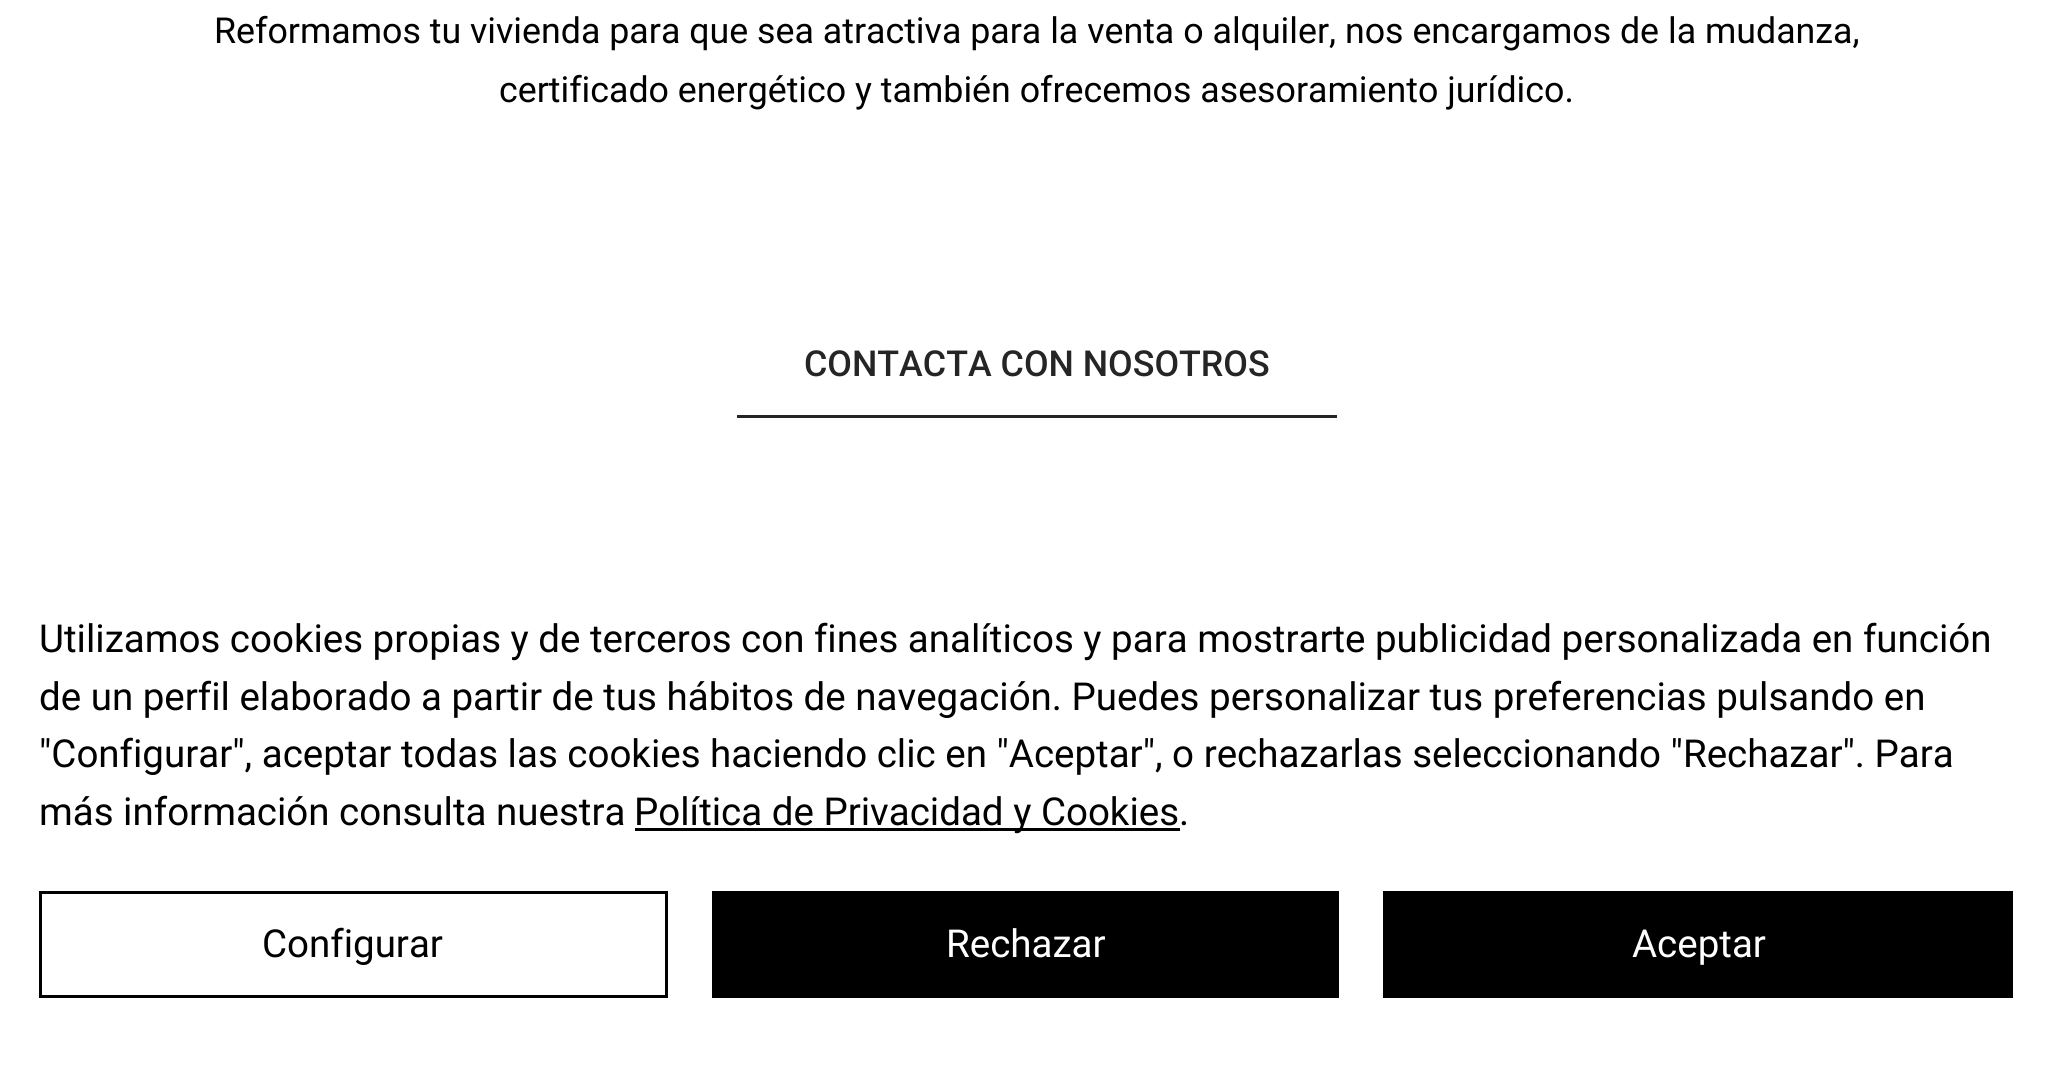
import math
import cairocffi as cairo

surface = cairo.ImageSurface(cairo.FORMAT_RGB24, 2072, 1073)
ctx = cairo.Context(surface)
options = cairo.FontOptions()
options.set_hint_metrics(cairo.HINT_METRICS_OFF)
options.set_hint_style(cairo.HINT_STYLE_NONE)
ctx.set_font_options(options)
ctx.set_miter_limit(4)


def rgb(r, g, b):
    ctx.set_source_rgb(r / 255, g / 255, b / 255)


def face(family, size, italic, bold):
    ctx.select_font_face(family, cairo.FONT_SLANT_ITALIC if italic else cairo.FONT_SLANT_NORMAL, cairo.FONT_WEIGHT_BOLD if bold else cairo.FONT_WEIGHT_NORMAL)
    ctx.set_font_size(size)


def label(x, y, s):
    ctx.move_to(x, y)
    ctx.show_text(s)


def rect(x, y, w, h):
    ctx.rectangle(x, y, w, h)
    ctx.fill()


rgb(255, 255, 255)
ctx.paint()
face('Roboto', 35.75, 0, 0)
rgb(0, 0, 0)
label(214, 43, 'Reformamos tu vivienda para que sea atractiva para la venta o alquiler, nos encargamos de la mudanza,')
label(499, 102, 'certificado energético y también ofrecemos asesoramiento jurídico.')
rgb(37, 37, 37)
rect(737, 415, 600, 3)
face('Roboto Medium', 35.75, 0, 0)
label(804, 376, 'CONTACTA CON NOSOTROS')
face('Roboto', 38.5, 0, 0)
rgb(0, 0, 0)
label(39, 652, 'Utilizamos cookies propias y de terceros con fines analíticos y para mostrarte publicidad personalizada en función')
label(39, 710, 'de un perfil elaborado a partir de tus hábitos de navegación. Puedes personalizar tus preferencias pulsando en')
label(39, 767, '"Configurar", aceptar todas las cookies haciendo clic en "Aceptar", o rechazarlas seleccionando "Rechazar". Para')
label(39, 825, 'más información consulta nuestra')
rect(635, 828, 545, 3)
label(634, 825, 'Política de Privacidad y Cookies.')
ctx.rectangle(40.5, 892.5, 626, 104)
ctx.set_line_width(3)
ctx.stroke()
label(262, 957, 'Configurar')
rect(712, 891, 627, 107)
rgb(255, 255, 255)
label(946, 957, 'Rechazar')
rgb(0, 0, 0)
rect(1383, 891, 630, 107)
rgb(255, 255, 255)
label(1632, 957, 'Aceptar')
surface.write_to_png('render.png')
